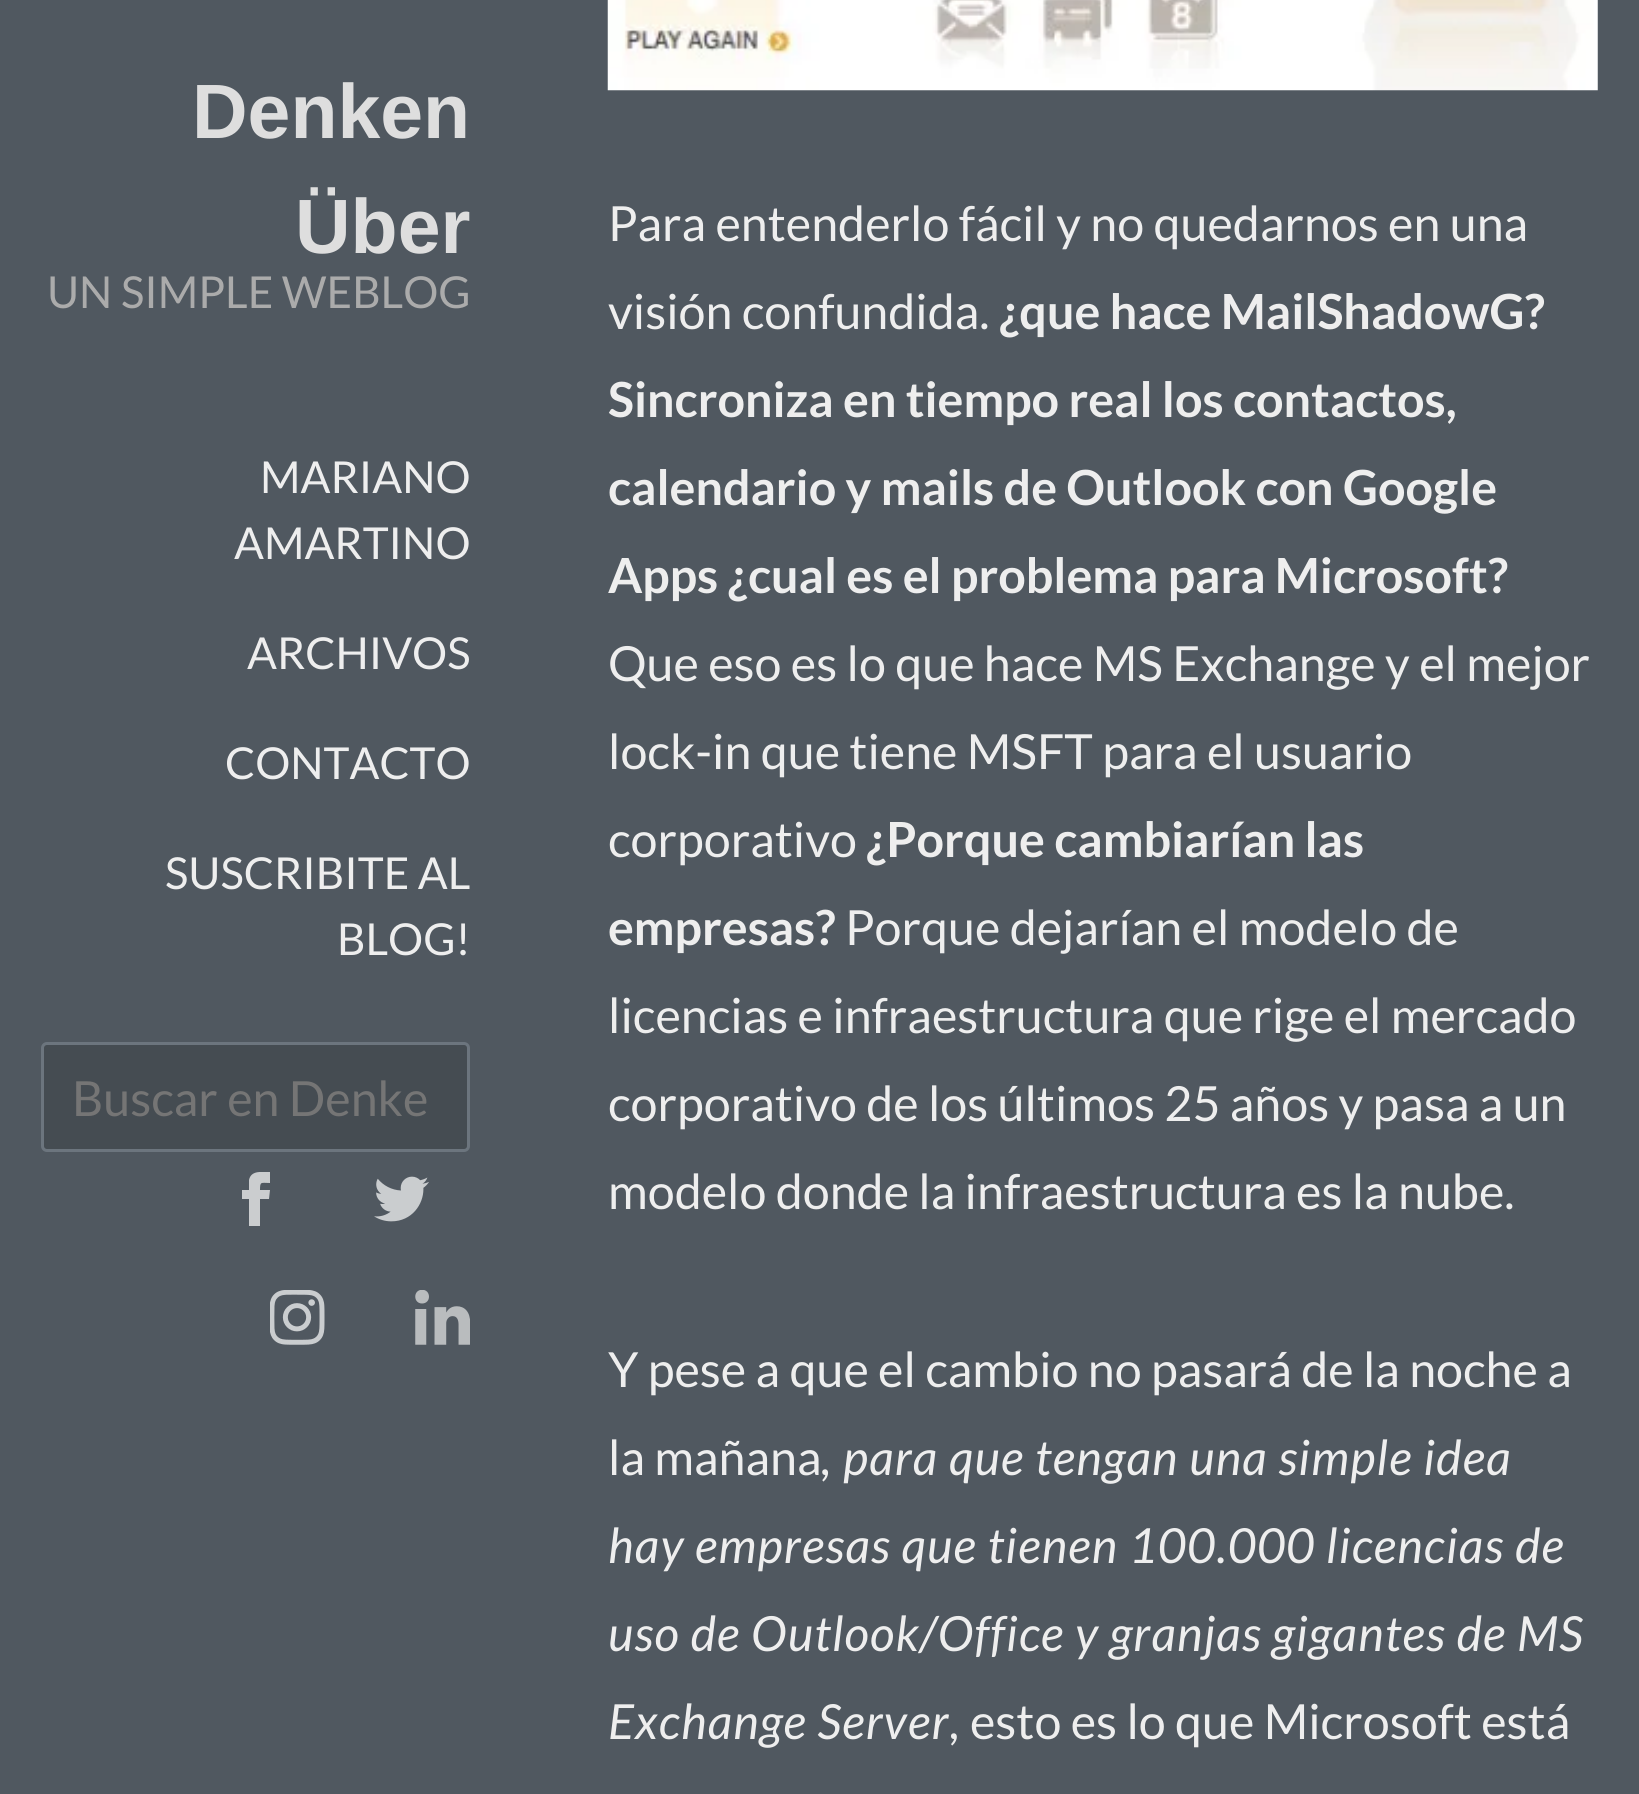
import math
import cairocffi as cairo

surface = cairo.ImageSurface(cairo.FORMAT_RGB24, 1639, 1794)
ctx = cairo.Context(surface)
options = cairo.FontOptions()
options.set_hint_metrics(cairo.HINT_METRICS_OFF)
options.set_hint_style(cairo.HINT_STYLE_NONE)
ctx.set_font_options(options)
ctx.set_miter_limit(4)


def rgb(r, g, b):
    ctx.set_source_rgb(r / 255, g / 255, b / 255)


def face(family, size, italic, bold):
    ctx.select_font_face(family, cairo.FONT_SLANT_ITALIC if italic else cairo.FONT_SLANT_NORMAL, cairo.FONT_WEIGHT_BOLD if bold else cairo.FONT_WEIGHT_NORMAL)
    ctx.set_font_size(size)


def label(x, y, s):
    ctx.move_to(x, y)
    ctx.show_text(s)


def tracked(x, y, s, letter, word):
    ctx.move_to(x, y)
    for ch in s:
        ctx.show_text(ch)
        ctx.rel_move_to(letter + word * (ch == ' '), 0)


def rrect(x, y, w, h, r):
    ctx.new_sub_path()
    for i, (u, v) in enumerate([(x + w - r, y + h - r), (x + r, y + h - r), (x + r, y + r), (x + w - r, y + r)]):
        ctx.arc(u, v, r, i * math.pi / 2, (i + 1) * math.pi / 2)
    ctx.close_path()


def image(path, x, y, w, h):
    ctx.save()
    ctx.set_source_surface(cairo.ImageSurface.create_from_png(path), x, y)
    ctx.rectangle(x, y, w, h)
    ctx.fill()
    ctx.restore()


rgb(80, 88, 96)
ctx.paint()
face('Liberation Sans', 77, 0, 1)
rgb(222, 222, 222)
label(192, 138, 'Denken')
label(295, 253, 'Über')
face('Lato', 44, 0, 0)
rgb(171, 171, 171)
label(47, 308, 'UN SIMPLE WEBLOG')
rgb(238, 238, 238)
label(260, 493, 'MARIANO')
label(234, 559, 'AMARTINO')
label(247, 669, 'ARCHIVOS')
label(225, 779, 'CONTACTO')
label(165, 889, 'SUSCRIBITE AL')
label(337, 955, 'BLOG!')
rgb(69, 76, 82)
rrect(42.5, 1043.5, 426, 107, 4.5)
ctx.fill_preserve()
rgb(108, 117, 126)
ctx.set_line_width(3)
ctx.stroke()
face('Lato', 48.4, 0, 0)
rgb(117, 117, 117)
label(72, 1116, 'Buscar en Denke')
ctx.save()
ctx.rectangle(228, 1172, 55, 55)
ctx.clip()
rgb(203, 205, 207)
ctx.new_path()
ctx.move_to(249, 1190)
ctx.line_to(242, 1190)
ctx.line_to(242, 1199)
ctx.line_to(249, 1199)
ctx.line_to(249, 1226)
ctx.line_to(260, 1226)
ctx.line_to(260, 1199)
ctx.line_to(269, 1199)
ctx.line_to(270, 1190)
ctx.line_to(260, 1190)
ctx.curve_to(260, 1181, 261, 1183, 270, 1183)
ctx.line_to(270, 1172)
ctx.curve_to(262, 1172, 251, 1170, 249, 1180)
ctx.close_path()
ctx.fill()
ctx.restore()
image('image0.png', 374, 1176, 55, 46)
image('image1.png', 270, 1290, 55, 55)
image('image2.png', 415, 1290, 55, 55)
image('image3.png', 607, 0, 991, 91)
rgb(238, 238, 238)
label(608, 241, 'Para entenderlo fácil y no quedarnos en una')
label(608, 329, 'visión confundida.')
face('Lato', 48.4, 0, 1)
label(999, 329, '¿que hace MailShadowG?')
label(608, 417, 'Sincroniza en tiempo real los contactos,')
label(608, 505, 'calendario y mails de Outlook con Google')
label(608, 593, 'Apps ¿cual es el problema para Microsoft?')
face('Lato', 48.4, 0, 0)
label(608, 681, 'Que eso es lo que hace MS Exchange y el mejor')
label(608, 769, 'lock-in que tiene MSFT para el usuario')
label(608, 857, 'corporativo')
face('Lato', 48.4, 0, 1)
label(866, 857, '¿Porque cambiarían las')
label(608, 945, 'empresas?')
face('Lato', 48.4, 0, 0)
label(845, 945, 'Porque dejarían el modelo de')
label(608, 1033, 'licencias e infraestructura que rige el mercado')
label(608, 1121, 'corporativo de los últimos 25 años y pasa a un')
label(608, 1209, 'modelo donde la infraestructura es la nube.')
label(608, 1387, 'Y pese a que el cambio no pasará de la noche a')
label(608, 1475, 'la mañana')
face('Lato', 48.4, 1, 0)
tracked(821, 1475, ', para que tengan una simple idea', 1.15, 0)
tracked(608, 1563, 'hay empresas que tienen 100.000 licencias de', 1.15, 0)
tracked(608, 1651, 'uso de Outlook/Office y granjas gigantes de MS', 1.15, 0)
tracked(608, 1739, 'Exchange Server,', 1.15, 0)
face('Lato', 48.4, 0, 0)
label(970, 1739, 'esto es lo que Microsoft está')
surface.write_to_png('render.png')
